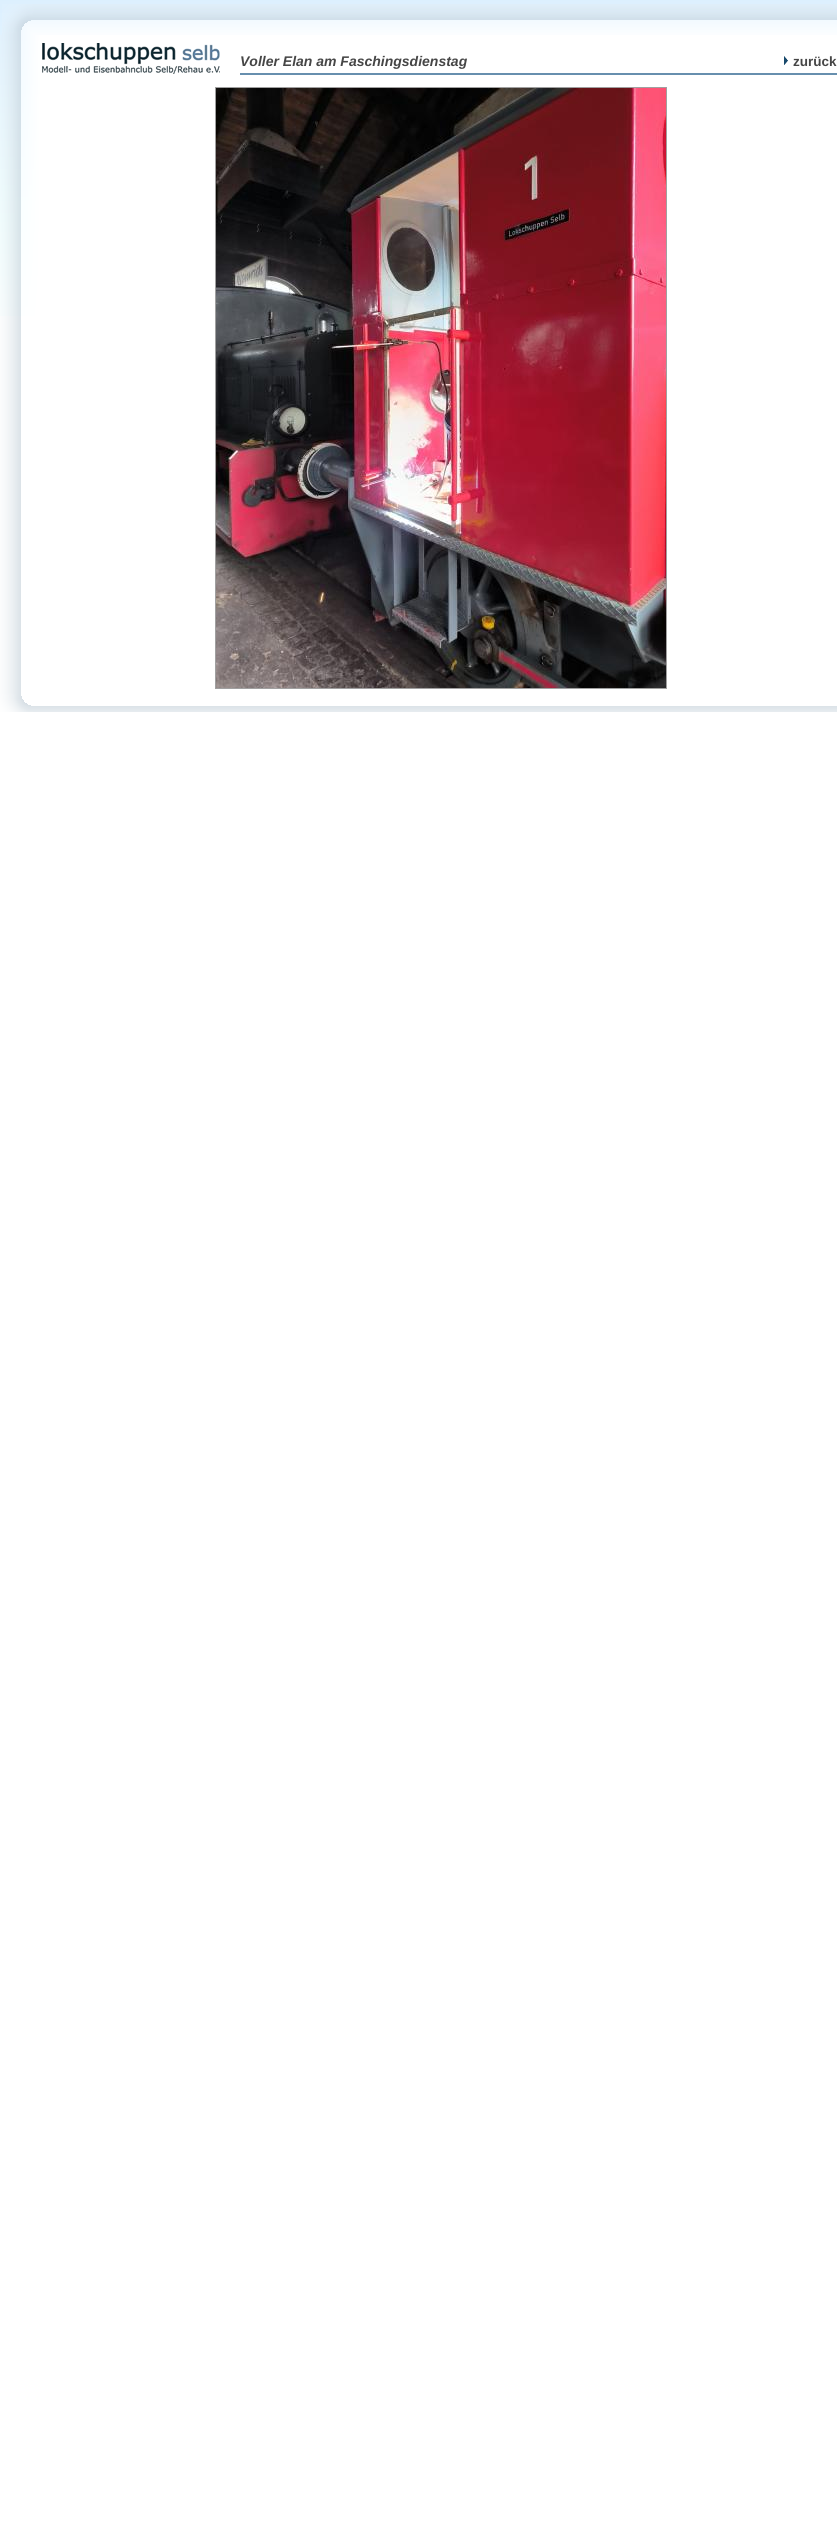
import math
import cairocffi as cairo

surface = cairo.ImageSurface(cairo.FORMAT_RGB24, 837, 2522)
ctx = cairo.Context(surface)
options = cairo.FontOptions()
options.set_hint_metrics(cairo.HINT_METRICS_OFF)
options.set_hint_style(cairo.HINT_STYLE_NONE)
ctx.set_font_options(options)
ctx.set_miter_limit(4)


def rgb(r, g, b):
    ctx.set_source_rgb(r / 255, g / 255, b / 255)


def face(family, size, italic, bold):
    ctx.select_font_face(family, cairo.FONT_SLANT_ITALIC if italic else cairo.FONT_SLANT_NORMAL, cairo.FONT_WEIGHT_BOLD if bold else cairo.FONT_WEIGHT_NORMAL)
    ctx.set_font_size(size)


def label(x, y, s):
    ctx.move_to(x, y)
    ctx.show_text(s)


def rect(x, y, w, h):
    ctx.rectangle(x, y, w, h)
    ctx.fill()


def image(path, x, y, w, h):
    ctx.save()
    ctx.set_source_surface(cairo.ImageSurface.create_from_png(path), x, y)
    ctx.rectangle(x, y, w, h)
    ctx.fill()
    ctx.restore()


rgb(255, 255, 255)
ctx.paint()
image('image0.png', 0, 0, 837, 316)
image('image1.png', 2, 4, 835, 31)
image('image2.png', 0, 35, 837, 657)
image('image3.png', 42, 43, 178, 31)
face('Liberation Sans', 14, 1, 1)
rgb(70, 70, 70)
label(240, 66, 'Voller Elan am Faschingsdienstag')
image('image4.png', 784, 56, 4, 9)
face('Liberation Sans', 13.5, 0, 1)
label(793, 66, 'zurück')
rgb(103, 143, 174)
rect(240, 73, 597, 2)
ctx.rectangle(215.5, 87.5, 451, 601)
rgb(160, 160, 160)
ctx.set_line_width(1)
ctx.stroke()
image('image5.png', 216, 88, 450, 600)
image('image6.png', 0, 692, 837, 20)
surface.write_to_png('render.png')
